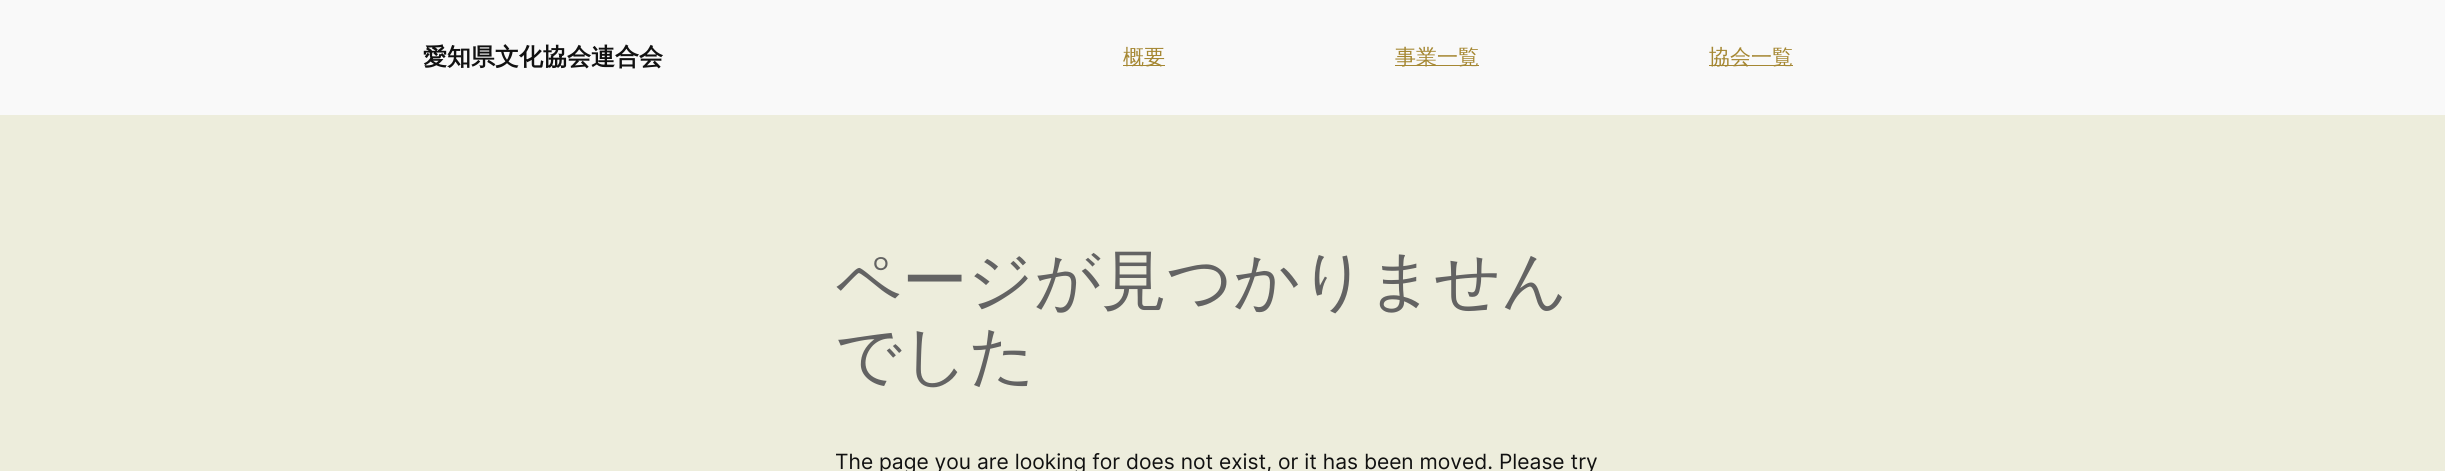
import math
import cairocffi as cairo

surface = cairo.ImageSurface(cairo.FORMAT_RGB24, 2445, 471)
ctx = cairo.Context(surface)
options = cairo.FontOptions()
options.set_hint_metrics(cairo.HINT_METRICS_OFF)
options.set_hint_style(cairo.HINT_STYLE_NONE)
ctx.set_font_options(options)
ctx.set_miter_limit(4)


def rgb(r, g, b):
    ctx.set_source_rgb(r / 255, g / 255, b / 255)


def face(family, size, italic, bold):
    ctx.select_font_face(family, cairo.FONT_SLANT_ITALIC if italic else cairo.FONT_SLANT_NORMAL, cairo.FONT_WEIGHT_BOLD if bold else cairo.FONT_WEIGHT_NORMAL)
    ctx.set_font_size(size)


def label(x, y, s):
    ctx.move_to(x, y)
    ctx.show_text(s)


def rect(x, y, w, h):
    ctx.rectangle(x, y, w, h)
    ctx.fill()


rgb(237, 237, 220)
ctx.paint()
rgb(249, 249, 249)
rect(0, 0, 2445, 115)
face('WenQuanYi Zen Hei', 24, 0, 1)
rgb(17, 17, 17)
label(423, 65, '愛知県文化協会連合会')
rgb(165, 135, 50)
rect(1123, 65, 42, 1)
face('WenQuanYi Zen Hei Medium', 21, 0, 0)
label(1123, 64, '概要')
rect(1395, 65, 84, 1)
label(1395, 64, '事業一覧')
rect(1709, 65, 84, 1)
label(1709, 64, '協会一覧')
face('WenQuanYi Zen Hei Medium', 65.4, 0, 0)
rgb(99, 99, 99)
label(835, 303, 'ページが見つかりません')
label(835, 378, 'でした')
face('Inter', 21, 0, 0)
rgb(17, 17, 17)
label(835, 469, 'The page you are looking for does not exist, or it has been moved. Please try')
surface.write_to_png('render.png')
